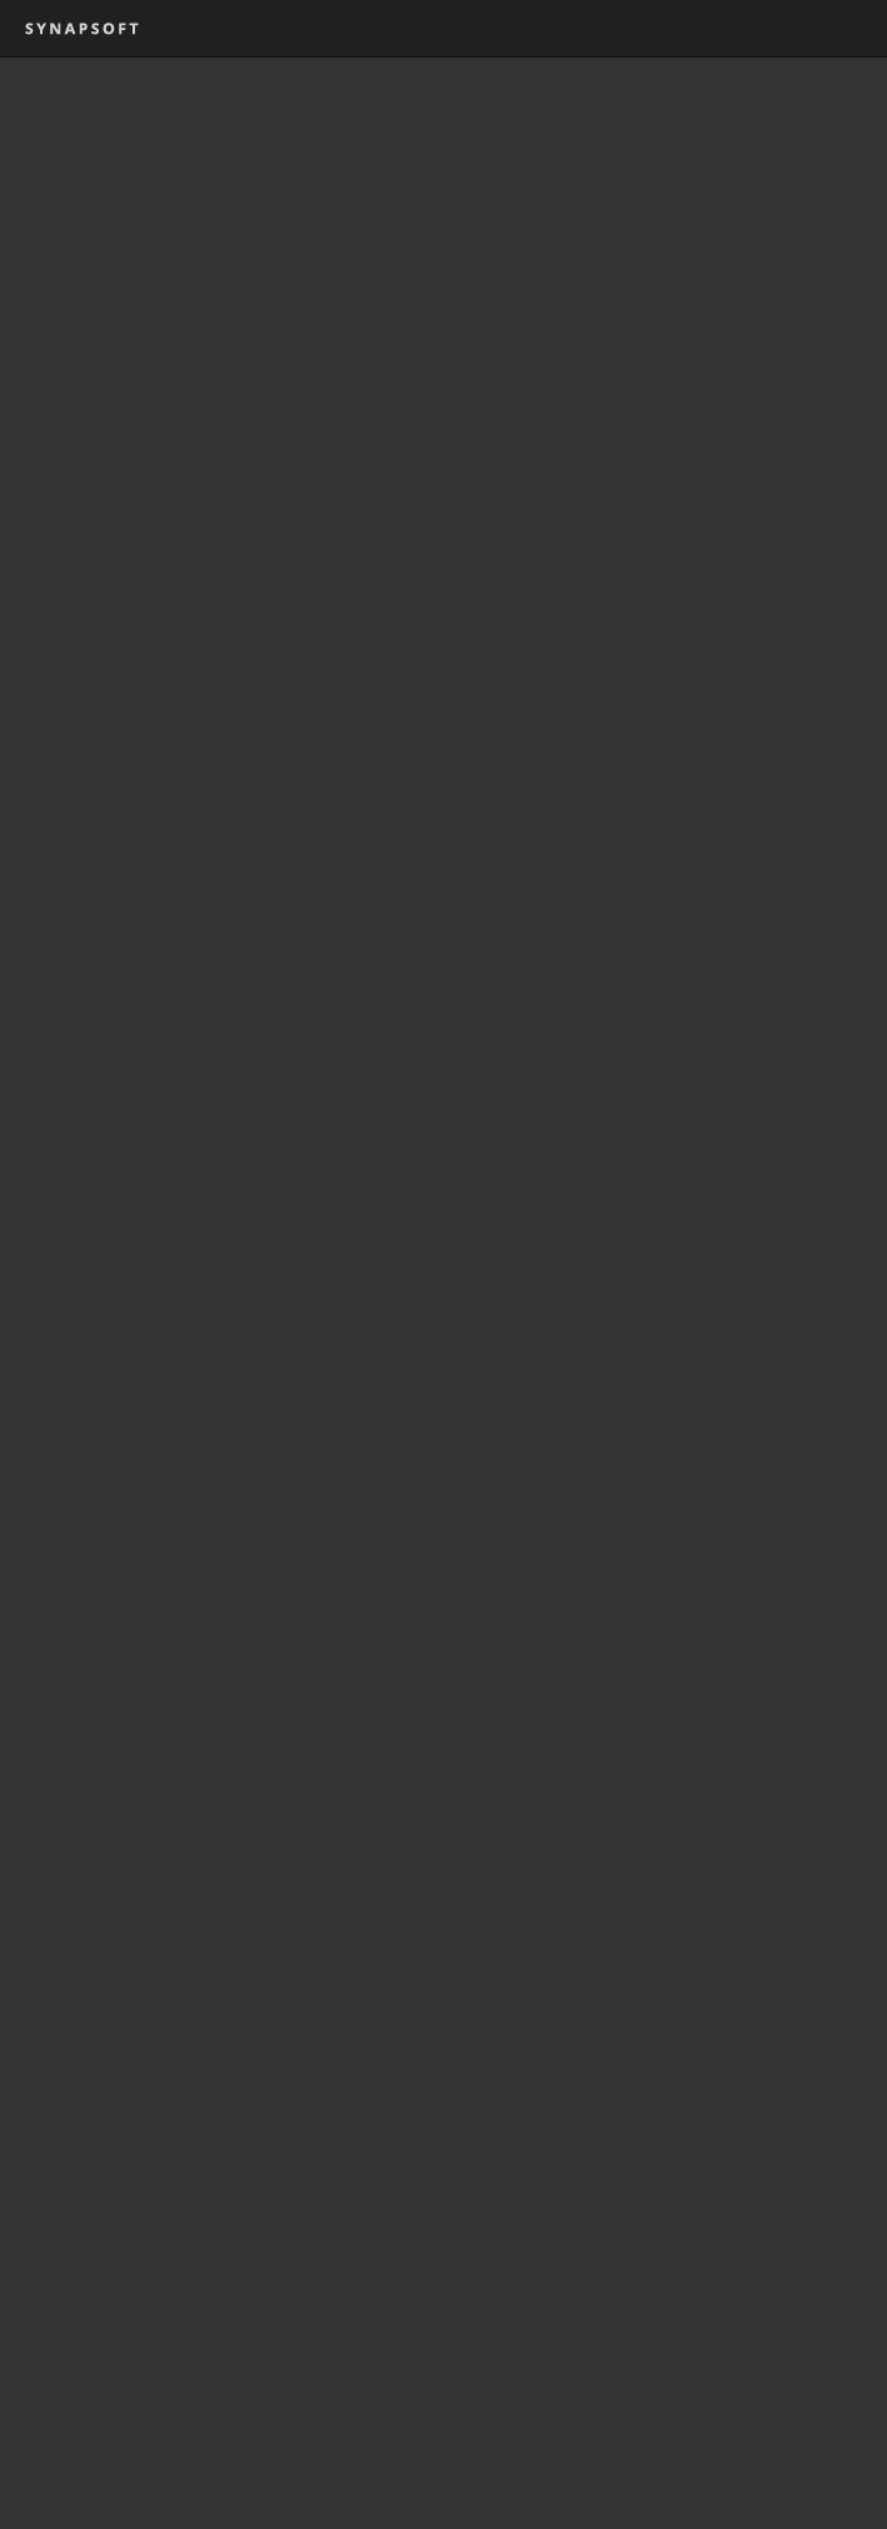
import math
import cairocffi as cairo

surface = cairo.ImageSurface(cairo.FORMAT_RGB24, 887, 2529)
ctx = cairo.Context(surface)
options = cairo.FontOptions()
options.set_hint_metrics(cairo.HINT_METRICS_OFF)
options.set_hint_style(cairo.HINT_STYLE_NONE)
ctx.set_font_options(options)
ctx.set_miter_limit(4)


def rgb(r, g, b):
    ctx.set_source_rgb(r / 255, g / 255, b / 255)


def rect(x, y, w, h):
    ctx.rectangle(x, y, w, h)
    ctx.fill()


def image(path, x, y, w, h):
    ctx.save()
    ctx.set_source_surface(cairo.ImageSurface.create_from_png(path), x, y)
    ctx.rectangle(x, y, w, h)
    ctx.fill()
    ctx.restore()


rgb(51, 51, 51)
ctx.paint()
rgb(32, 32, 32)
rect(0, 0, 887, 58)
rgb(18, 18, 18)
rect(0, 56, 887, 1)
image('image0.png', 25, 22, 114, 14)
surface.write_to_png('render.png')
